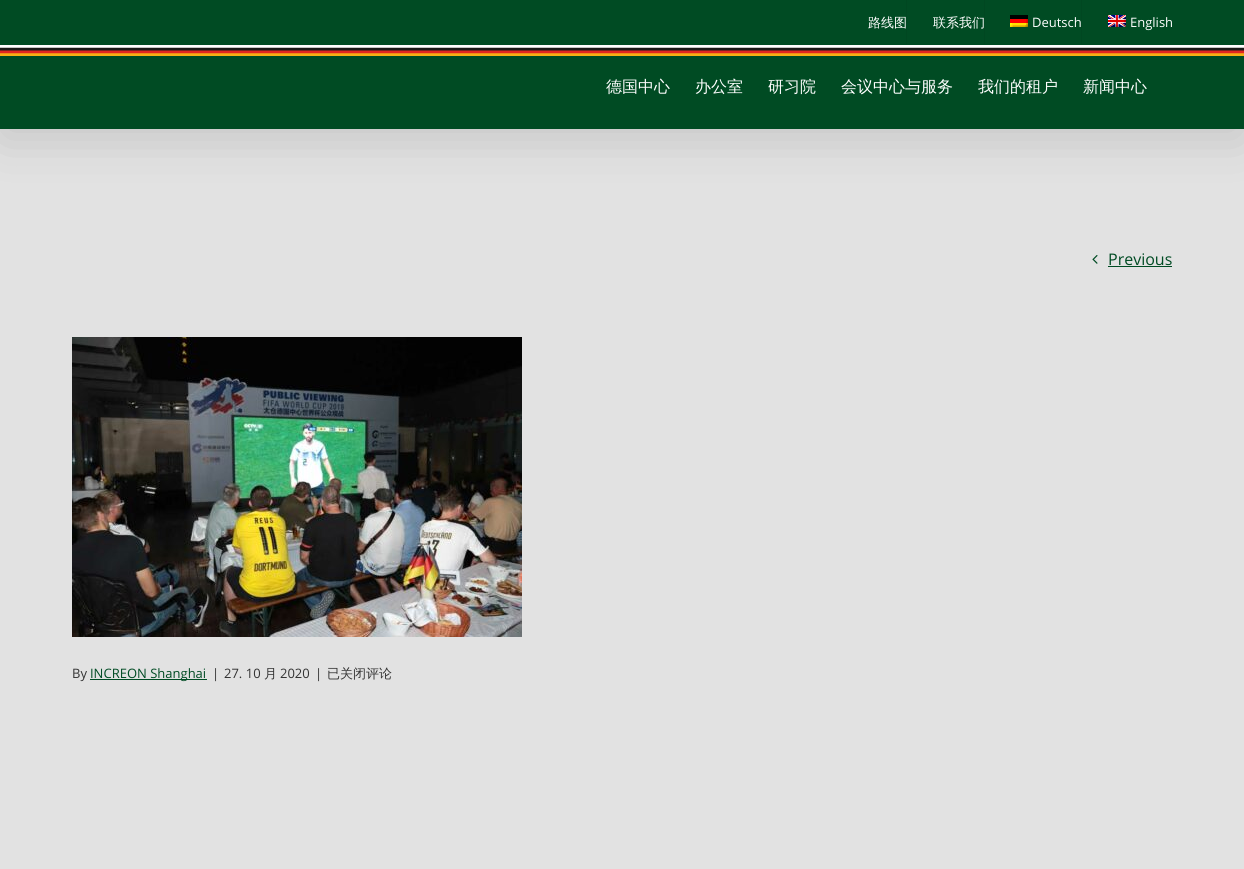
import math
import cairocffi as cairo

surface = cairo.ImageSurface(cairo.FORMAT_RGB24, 1244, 869)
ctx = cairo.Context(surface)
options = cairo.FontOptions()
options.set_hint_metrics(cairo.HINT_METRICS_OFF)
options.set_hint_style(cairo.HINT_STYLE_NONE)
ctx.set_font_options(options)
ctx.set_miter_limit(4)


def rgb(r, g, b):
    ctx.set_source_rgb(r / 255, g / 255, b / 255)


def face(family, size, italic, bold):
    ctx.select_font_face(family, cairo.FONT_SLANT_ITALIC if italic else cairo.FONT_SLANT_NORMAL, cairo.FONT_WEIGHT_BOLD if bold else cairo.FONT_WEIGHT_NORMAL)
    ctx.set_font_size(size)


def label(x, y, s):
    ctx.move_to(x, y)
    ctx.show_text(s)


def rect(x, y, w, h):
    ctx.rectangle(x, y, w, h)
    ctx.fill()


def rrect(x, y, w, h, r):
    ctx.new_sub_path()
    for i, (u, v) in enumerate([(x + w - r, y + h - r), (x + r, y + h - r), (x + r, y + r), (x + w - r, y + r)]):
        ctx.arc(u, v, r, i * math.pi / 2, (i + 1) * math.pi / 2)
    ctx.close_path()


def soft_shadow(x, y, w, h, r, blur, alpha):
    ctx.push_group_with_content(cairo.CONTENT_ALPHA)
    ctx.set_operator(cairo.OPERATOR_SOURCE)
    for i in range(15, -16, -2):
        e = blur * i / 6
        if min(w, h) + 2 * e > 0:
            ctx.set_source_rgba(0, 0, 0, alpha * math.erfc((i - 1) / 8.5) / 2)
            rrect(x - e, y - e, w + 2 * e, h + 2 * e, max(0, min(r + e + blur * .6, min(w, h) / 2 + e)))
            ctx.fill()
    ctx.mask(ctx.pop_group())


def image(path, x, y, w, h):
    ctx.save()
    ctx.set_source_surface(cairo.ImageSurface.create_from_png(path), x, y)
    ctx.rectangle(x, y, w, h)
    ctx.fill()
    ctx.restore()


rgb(226, 226, 226)
ctx.paint()
rgb(0, 0, 0)
soft_shadow(2, 12, 1240, 125, 0, 25, 0.14)
rgb(0, 75, 35)
rect(0, 0, 1244, 45)
face('WenQuanYi Zen Hei Medium', 13, 0, 0)
rgb(255, 255, 255)
label(868, 27, '路线图')
rgb(0, 71, 33)
rect(906, 0, 1, 44)
rgb(255, 255, 255)
label(933, 27, '联系我们')
rgb(0, 71, 33)
rect(984, 0, 1, 44)
image('image0.png', 1010, 15, 18, 12)
face('Open Sans', 13, 0, 0)
rgb(255, 255, 255)
label(1032, 27, 'Deutsch')
rgb(0, 71, 33)
rect(1081, 0, 1, 44)
image('image1.png', 1108, 15, 18, 12)
rgb(255, 255, 255)
label(1130, 27, 'English')
rgb(0, 75, 35)
rect(0, 56, 1244, 73)
image('image2.png', 0, 45, 1244, 11)
face('WenQuanYi Zen Hei Medium', 16, 0, 0)
rgb(255, 255, 255)
label(606, 92, '德国中心')
label(695, 92, '办公室')
label(768, 92, '研习院')
label(841, 92, '会议中心与服务')
label(978, 92, '我们的租户')
label(1083, 92, '新闻中心')
image('image3.png', 1092, 255, 6, 9)
face('Open Sans', 16, 0, 0)
rgb(0, 75, 35)
label(1108, 265, 'Previous')
rect(1108, 266, 64, 1)
image('image4.png', 72, 337, 450, 300)
face('Open Sans', 13, 0, 0)
rgb(51, 51, 51)
label(72, 678, 'By')
rgb(0, 75, 35)
rect(90, 679, 117, 1)
label(90, 678, 'INCREON Shanghai')
rgb(51, 51, 51)
label(212, 678, '|')
label(224, 678, '27. 10')
face('WenQuanYi Zen Hei Medium', 13, 0, 0)
label(264, 678, '月')
face('Open Sans', 13, 0, 0)
label(280, 678, '2020')
label(315, 678, '|')
face('WenQuanYi Zen Hei Medium', 13, 0, 0)
label(327, 678, '已关闭评论')
surface.write_to_png('render.png')
